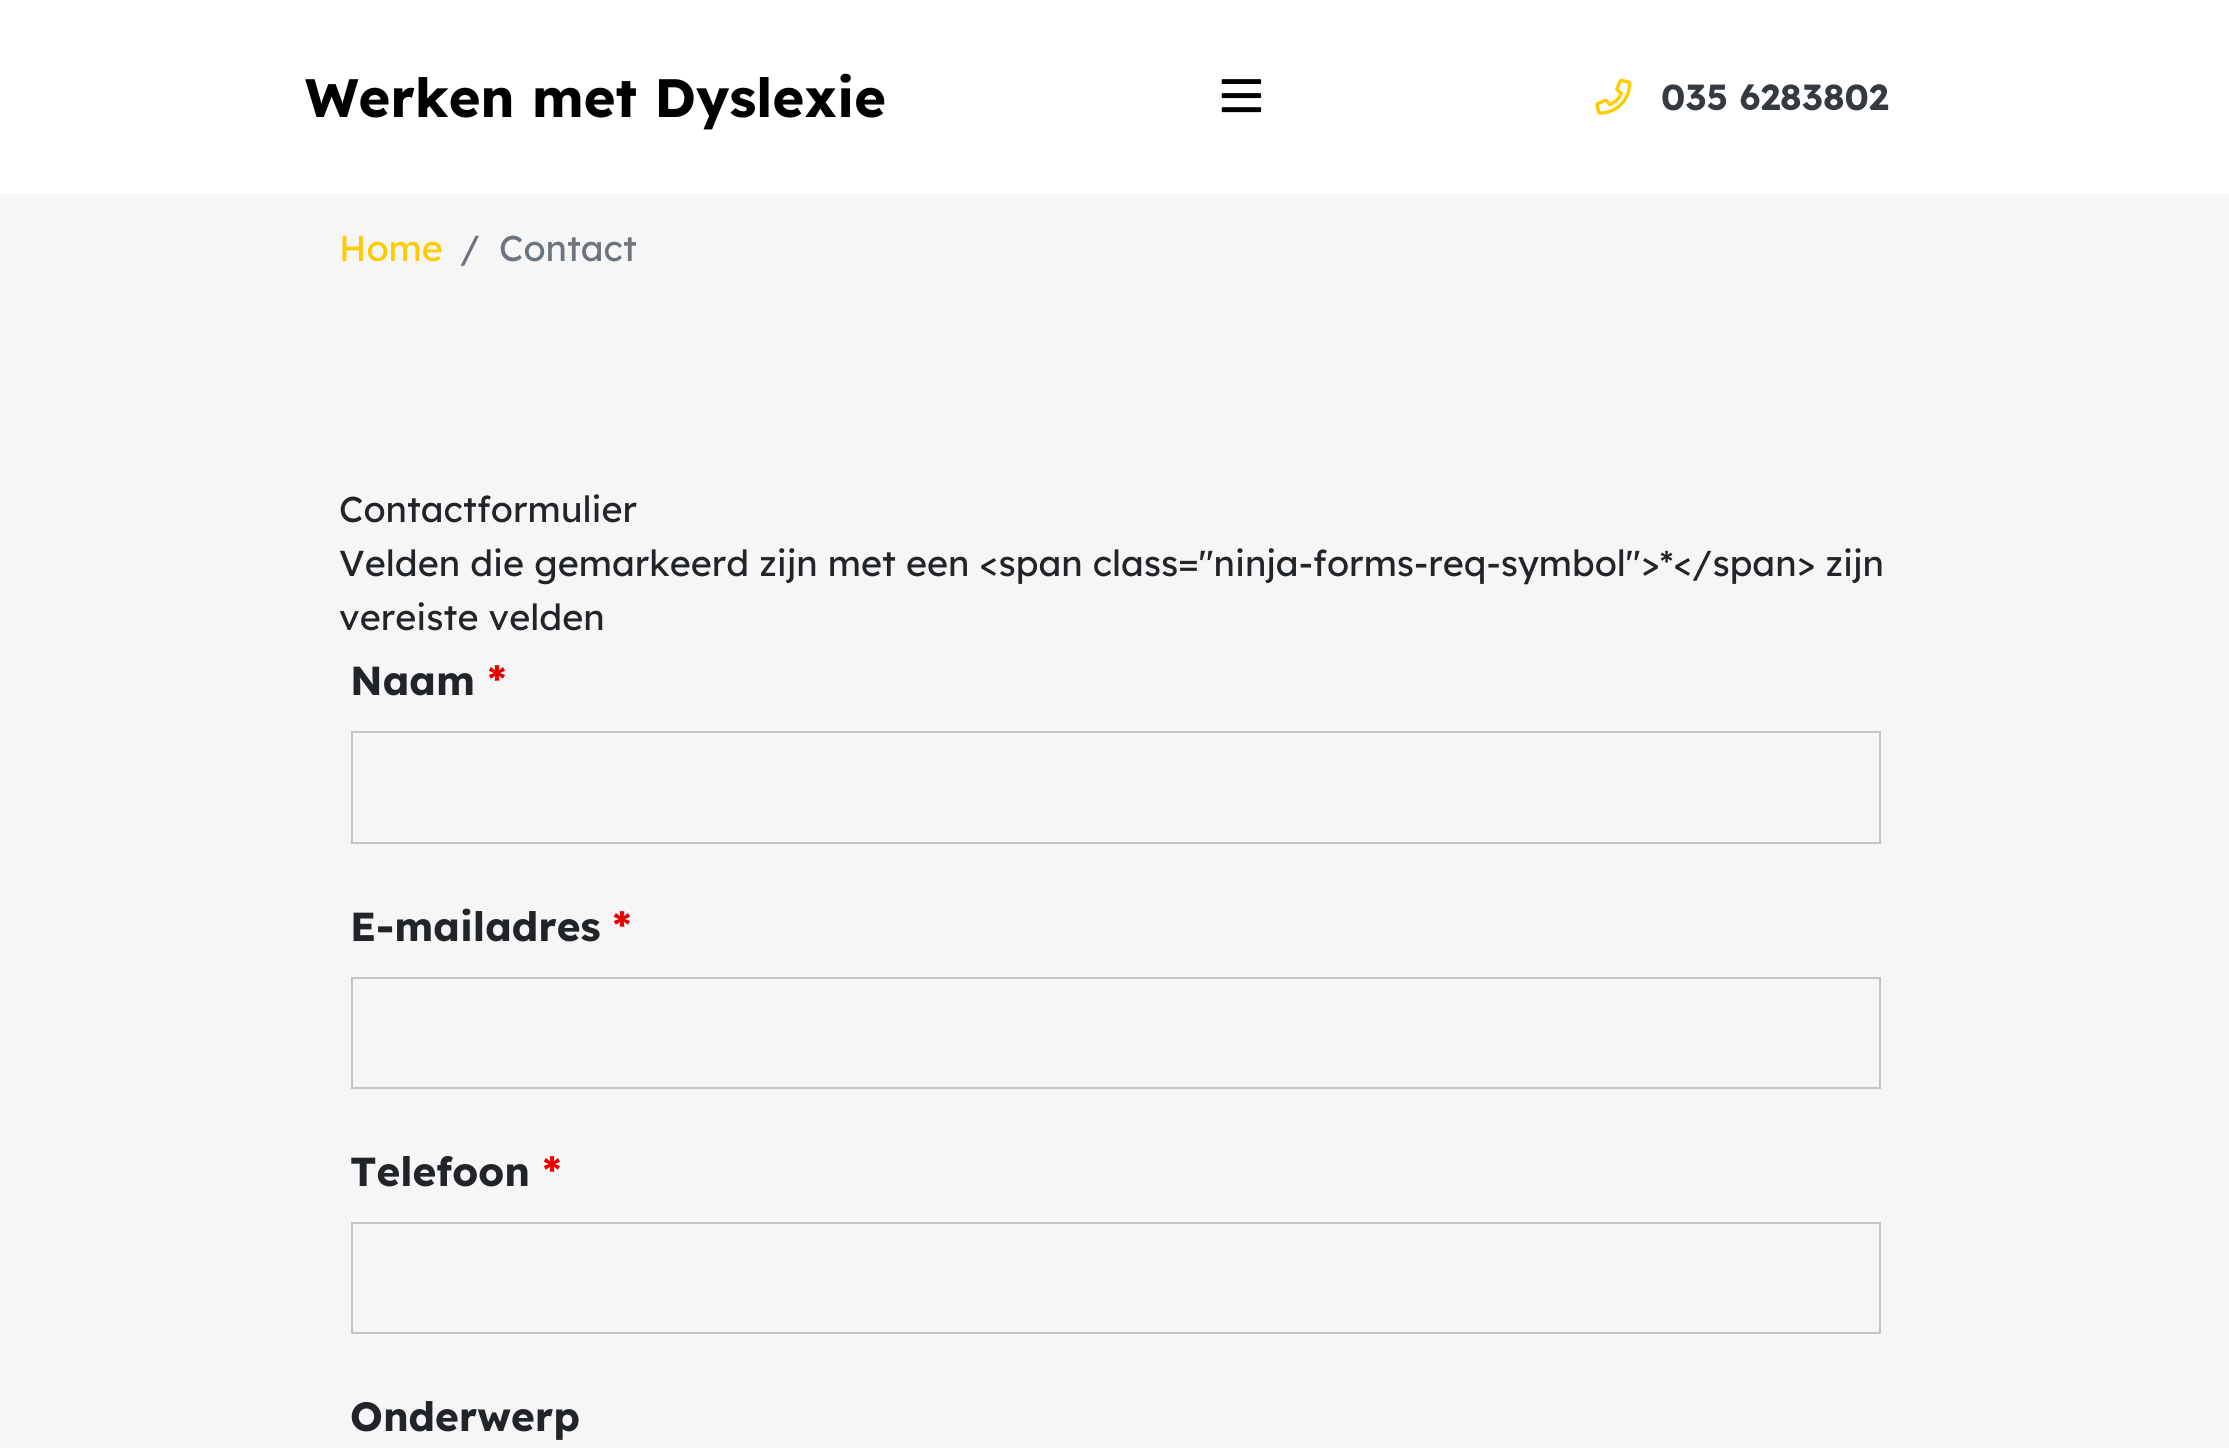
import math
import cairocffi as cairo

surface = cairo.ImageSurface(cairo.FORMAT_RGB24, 2229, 1448)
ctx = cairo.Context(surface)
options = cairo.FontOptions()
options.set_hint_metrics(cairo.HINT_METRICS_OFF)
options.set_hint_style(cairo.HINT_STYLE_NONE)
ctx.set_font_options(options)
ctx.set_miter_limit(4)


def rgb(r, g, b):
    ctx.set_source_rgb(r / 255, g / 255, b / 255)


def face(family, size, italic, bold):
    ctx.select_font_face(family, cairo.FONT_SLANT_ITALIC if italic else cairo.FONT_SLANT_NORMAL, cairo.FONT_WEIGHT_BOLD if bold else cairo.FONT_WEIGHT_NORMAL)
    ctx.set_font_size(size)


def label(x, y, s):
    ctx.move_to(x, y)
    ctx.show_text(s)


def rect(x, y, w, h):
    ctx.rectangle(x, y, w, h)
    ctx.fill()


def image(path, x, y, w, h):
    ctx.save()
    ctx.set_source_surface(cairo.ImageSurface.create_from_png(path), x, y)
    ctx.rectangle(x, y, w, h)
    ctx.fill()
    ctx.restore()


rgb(246, 246, 246)
ctx.paint()
rgb(255, 255, 255)
rect(0, 0, 2229, 194)
face('Lexend', 54, 0, 1)
rgb(0, 0, 0)
label(305, 117, 'Werken met Dyslexie')
image('image0.png', 1221, 79, 41, 34)
image('image1.png', 1595, 78, 37, 37)
face('Lexend', 36, 0, 1)
rgb(52, 58, 64)
label(1661, 110, '035 6283802')
face('Lexend', 36, 0, 0)
rgb(255, 202, 0)
label(339, 261, 'Home')
rgb(108, 117, 125)
label(460, 261, '/')
label(499, 261, 'Contact')
rgb(33, 37, 41)
label(339, 522, 'Contactformulier')
label(339, 576, 'Velden die gemarkeerd zijn met een <span class="ninja-forms-req-symbol">*</span> zijn')
label(339, 630, 'vereiste velden')
face('Lexend', 40.5, 0, 1)
label(350, 695, 'Naam')
rgb(232, 0, 0)
label(488, 695, '*')
ctx.rectangle(352, 732, 1528, 111)
rgb(196, 196, 196)
ctx.stroke()
rgb(33, 37, 41)
label(350, 941, 'E-mailadres')
rgb(232, 0, 0)
label(613, 941, '*')
ctx.rectangle(352, 978, 1528, 110)
rgb(196, 196, 196)
ctx.stroke()
rgb(33, 37, 41)
label(350, 1186, 'Telefoon')
rgb(232, 0, 0)
label(543, 1186, '*')
ctx.rectangle(352, 1223, 1528, 110)
rgb(196, 196, 196)
ctx.stroke()
rgb(33, 37, 41)
label(350, 1431, 'Onderwerp')
surface.write_to_png('render.png')
